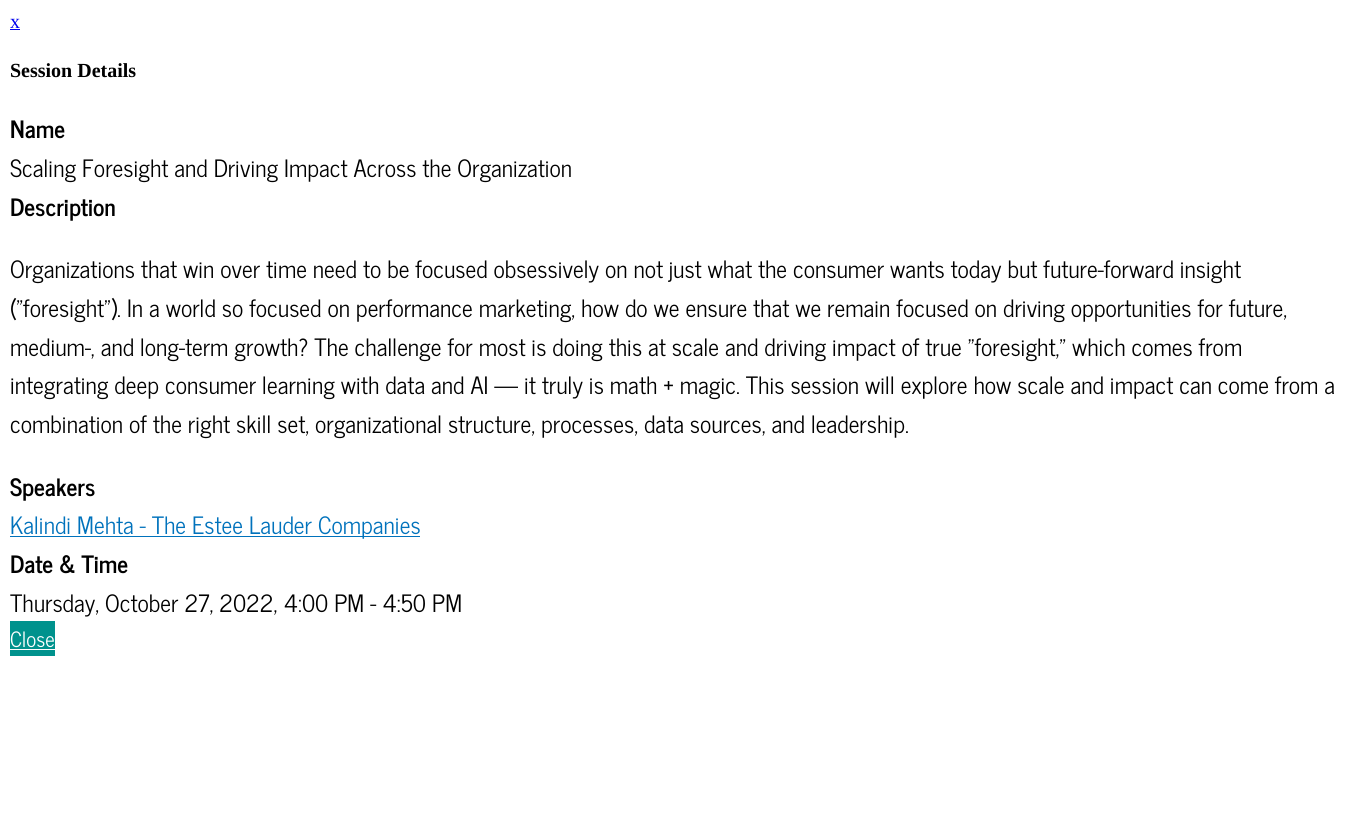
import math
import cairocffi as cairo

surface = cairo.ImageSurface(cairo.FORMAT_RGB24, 1353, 838)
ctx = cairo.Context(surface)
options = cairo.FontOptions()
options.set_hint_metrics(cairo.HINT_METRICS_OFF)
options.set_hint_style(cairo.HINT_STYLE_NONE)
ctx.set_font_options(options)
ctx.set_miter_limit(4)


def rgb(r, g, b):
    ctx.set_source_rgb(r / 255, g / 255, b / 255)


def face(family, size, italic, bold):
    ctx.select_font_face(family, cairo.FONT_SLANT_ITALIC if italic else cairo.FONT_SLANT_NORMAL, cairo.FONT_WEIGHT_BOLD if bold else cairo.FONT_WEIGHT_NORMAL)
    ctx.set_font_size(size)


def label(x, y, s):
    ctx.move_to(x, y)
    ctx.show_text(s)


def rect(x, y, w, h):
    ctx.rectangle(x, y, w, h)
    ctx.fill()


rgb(255, 255, 255)
ctx.paint()
face('Liberation Serif', 20, 0, 0)
rgb(0, 0, 238)
label(10, 28, 'x')
rect(10, 29, 10, 1)
face('Liberation Serif', 20, 0, 1)
rgb(0, 0, 0)
label(10, 77, 'Session Details')
face('News Cycle', 23.75, 0, 1)
label(10, 138, 'Name')
face('News Cycle', 23.75, 0, 0)
label(10, 177, 'Scaling Foresight and Driving Impact Across the Organization')
face('News Cycle', 23.75, 0, 1)
label(10, 216, 'Description')
face('News Cycle', 23.75, 0, 0)
label(10, 278, 'Organizations that win over time need to be focused obsessively on not just what the consumer wants today but future-forward insight')
label(10, 317, '("foresight”). In a world so focused on performance marketing, how do we ensure that we remain focused on driving opportunities for future,')
label(10, 356, 'medium-, and long-term growth? The challenge for most is doing this at scale and driving impact of true "foresight," which comes from')
label(10, 394, 'integrating deep consumer learning with data and AI — it truly is math + magic. This session will explore how scale and impact can come from a')
label(10, 433, 'combination of the right skill set, organizational structure, processes, data sources, and leadership.')
face('News Cycle', 23.75, 0, 1)
label(10, 496, 'Speakers')
rgb(0, 114, 188)
rect(10, 536, 410, 1)
face('News Cycle', 23.75, 0, 0)
label(10, 534, 'Kalindi Mehta - The Estee Lauder Companies')
face('News Cycle', 23.75, 0, 1)
rgb(0, 0, 0)
label(10, 573, 'Date & Time')
face('News Cycle', 23.75, 0, 0)
label(10, 612, 'Thursday, October 27, 2022, 4:00 PM - 4:50 PM')
rgb(0, 146, 141)
rect(10, 621, 45, 35)
face('News Cycle', 21, 0, 0)
rgb(255, 255, 255)
label(10, 647, 'Close')
rect(10, 649, 45, 1)
surface.write_to_png('render.png')
